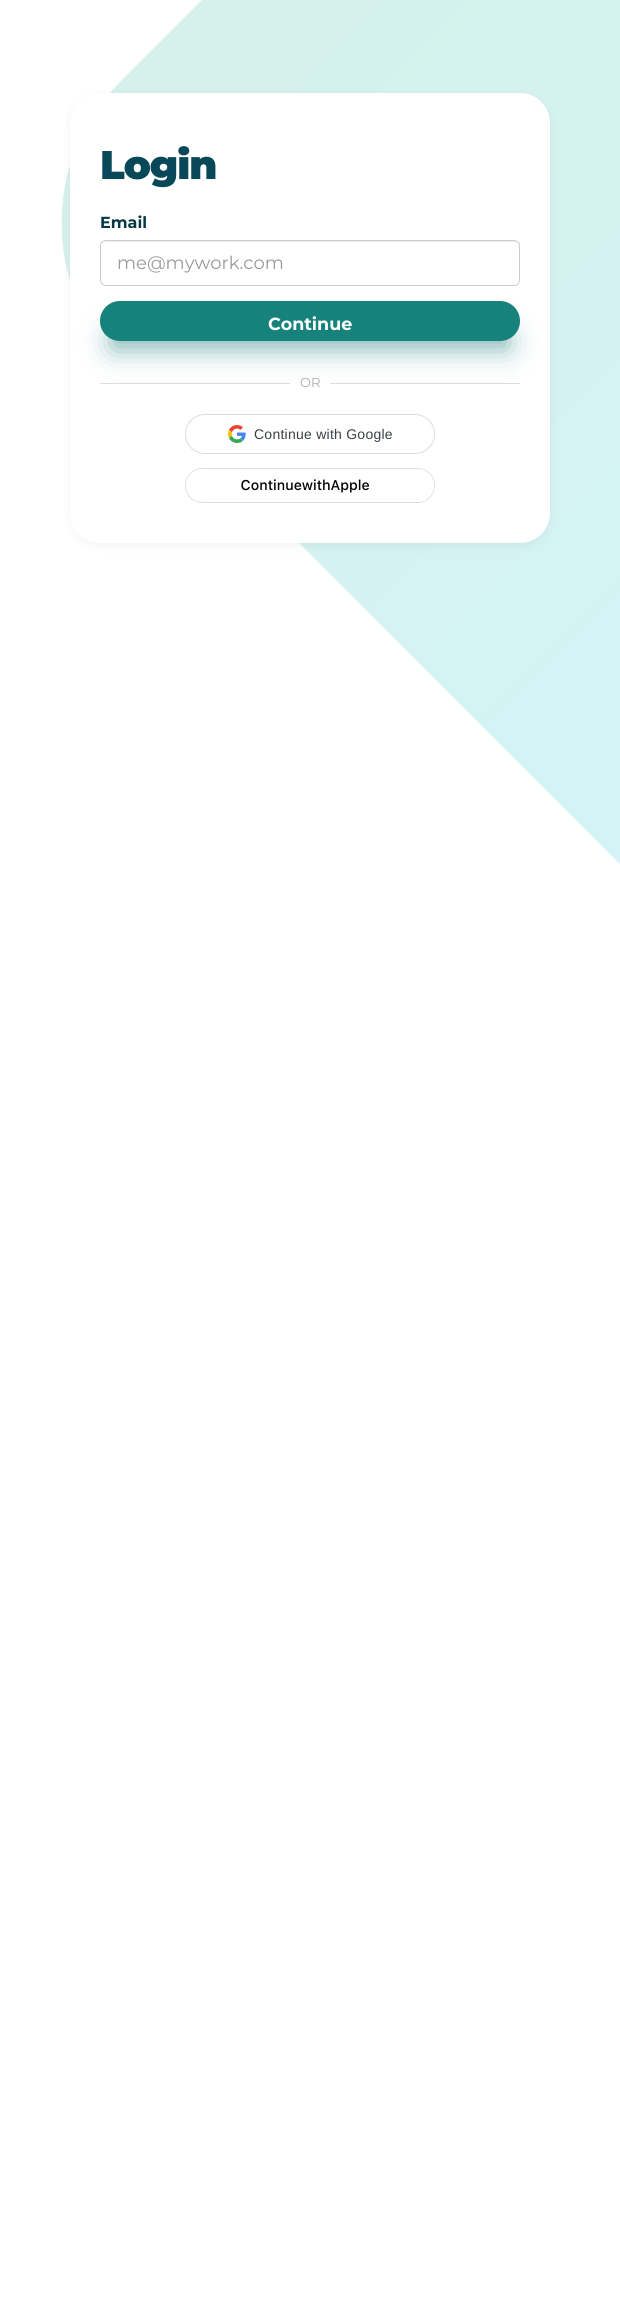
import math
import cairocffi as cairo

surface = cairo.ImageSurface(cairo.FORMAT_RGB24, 620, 2306)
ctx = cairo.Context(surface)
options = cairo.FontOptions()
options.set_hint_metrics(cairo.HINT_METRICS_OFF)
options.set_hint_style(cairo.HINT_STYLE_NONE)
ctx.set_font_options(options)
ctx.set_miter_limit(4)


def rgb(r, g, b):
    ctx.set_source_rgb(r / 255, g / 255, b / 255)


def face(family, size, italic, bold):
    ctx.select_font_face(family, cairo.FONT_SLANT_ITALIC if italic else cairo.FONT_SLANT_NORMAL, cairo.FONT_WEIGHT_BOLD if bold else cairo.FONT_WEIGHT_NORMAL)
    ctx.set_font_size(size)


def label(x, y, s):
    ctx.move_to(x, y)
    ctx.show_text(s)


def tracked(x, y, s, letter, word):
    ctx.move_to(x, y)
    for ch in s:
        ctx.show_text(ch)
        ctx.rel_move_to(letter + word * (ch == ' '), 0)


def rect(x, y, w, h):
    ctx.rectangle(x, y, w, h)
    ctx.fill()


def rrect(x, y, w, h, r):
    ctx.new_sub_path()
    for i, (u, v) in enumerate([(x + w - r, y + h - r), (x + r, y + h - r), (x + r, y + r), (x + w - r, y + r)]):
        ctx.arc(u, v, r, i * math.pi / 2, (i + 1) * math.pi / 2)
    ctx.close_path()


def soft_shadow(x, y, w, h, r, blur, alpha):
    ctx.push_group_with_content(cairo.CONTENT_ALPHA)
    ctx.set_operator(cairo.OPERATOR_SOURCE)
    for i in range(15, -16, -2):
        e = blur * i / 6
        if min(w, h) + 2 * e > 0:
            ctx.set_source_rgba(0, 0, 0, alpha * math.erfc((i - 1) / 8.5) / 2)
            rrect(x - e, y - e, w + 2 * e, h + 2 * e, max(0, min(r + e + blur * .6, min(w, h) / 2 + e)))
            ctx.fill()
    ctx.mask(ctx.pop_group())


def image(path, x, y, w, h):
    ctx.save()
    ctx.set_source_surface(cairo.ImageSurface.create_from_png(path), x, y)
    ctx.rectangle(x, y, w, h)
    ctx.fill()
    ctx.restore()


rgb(255, 255, 255)
ctx.paint()
gradient = cairo.LinearGradient(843, -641, 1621, 136)
gradient.add_color_stop_rgba(0, 0.839, 0.945, 0.922, 1)
gradient.add_color_stop_rgba(1, 0.824, 0.957, 0.973, 1)
ctx.set_source(gradient)
ctx.new_path()
ctx.move_to(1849, -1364)
ctx.line_to(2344, -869)
ctx.curve_to(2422, -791, 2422, -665, 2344, -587)
ctx.line_to(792, 965)
ctx.curve_to(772, 985, 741, 985, 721, 965)
ctx.line_to(120, 364)
ctx.curve_to(42, 286, 42, 160, 120, 82)
ctx.line_to(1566, -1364)
ctx.curve_to(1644, -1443, 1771, -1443, 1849, -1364)
ctx.close_path()
ctx.fill()
rgb(0, 0, 0)
soft_shadow(70, 96, 480, 450, 30, 5, 0.05)
rgb(255, 255, 255)
rrect(70, 93, 480, 450, 30)
ctx.fill()
face('Montserrat Black', 40, 0, 0)
rgb(8, 72, 89)
tracked(100, 179, 'Login', -1, 0)
face('Montserrat', 16, 0, 1)
rgb(6, 55, 68)
label(100, 228, 'Email')
rgb(236, 236, 236)
ctx.new_path()
ctx.move_to(106, 242)
ctx.line_to(514, 242)
ctx.curve_to(517, 242, 519, 244, 519, 247)
ctx.curve_to(519, 244, 517, 241, 514, 241)
ctx.line_to(106, 241)
ctx.curve_to(103, 241, 101, 244, 101, 247)
ctx.curve_to(101, 244, 103, 242, 106, 242)
ctx.close_path()
ctx.fill()
rrect(100.5, 240.5, 419, 45, 5.5)
rgb(204, 204, 204)
ctx.set_line_width(1)
ctx.stroke()
face('Montserrat', 18, 0, 0)
rgb(153, 153, 153)
label(117, 269, 'me@mywork.com')
rgb(221, 221, 221)
rect(100, 383, 420, 1)
rgb(255, 255, 255)
rect(290, 383, 40, 1)
rgb(112, 172, 172)
soft_shadow(115, 336, 390, 10, 5, 15, 1)
rgb(23, 130, 123)
rrect(100, 301, 420, 40, 20)
ctx.fill()
face('Montserrat', 17.5, 0, 1)
rgb(255, 255, 255)
label(268, 330, 'Continue')
face('Montserrat', 13, 0, 0)
rgb(170, 170, 170)
label(300, 387, 'OR')
rrect(185.5, 414.5, 249, 39, 19.5)
rgb(218, 220, 224)
ctx.stroke()
image('image0.png', 228, 425, 18, 18)
face('Liberation Sans', 14, 0, 0)
rgb(60, 64, 67)
tracked(254, 439, 'Continue with Google', 0.25, 0)
rrect(185.5, 468.5, 249, 34, 17)
rgb(221, 221, 221)
ctx.stroke()
rgb(255, 255, 255)
rrect(186, 469, 248, 33, 16.5)
ctx.fill()
face('SF Pro Text Medium', 14.1, 0, 0)
rgb(0, 0, 0)
tracked(237, 490, ' Continue with Apple', 0, -4)
surface.write_to_png('render.png')
